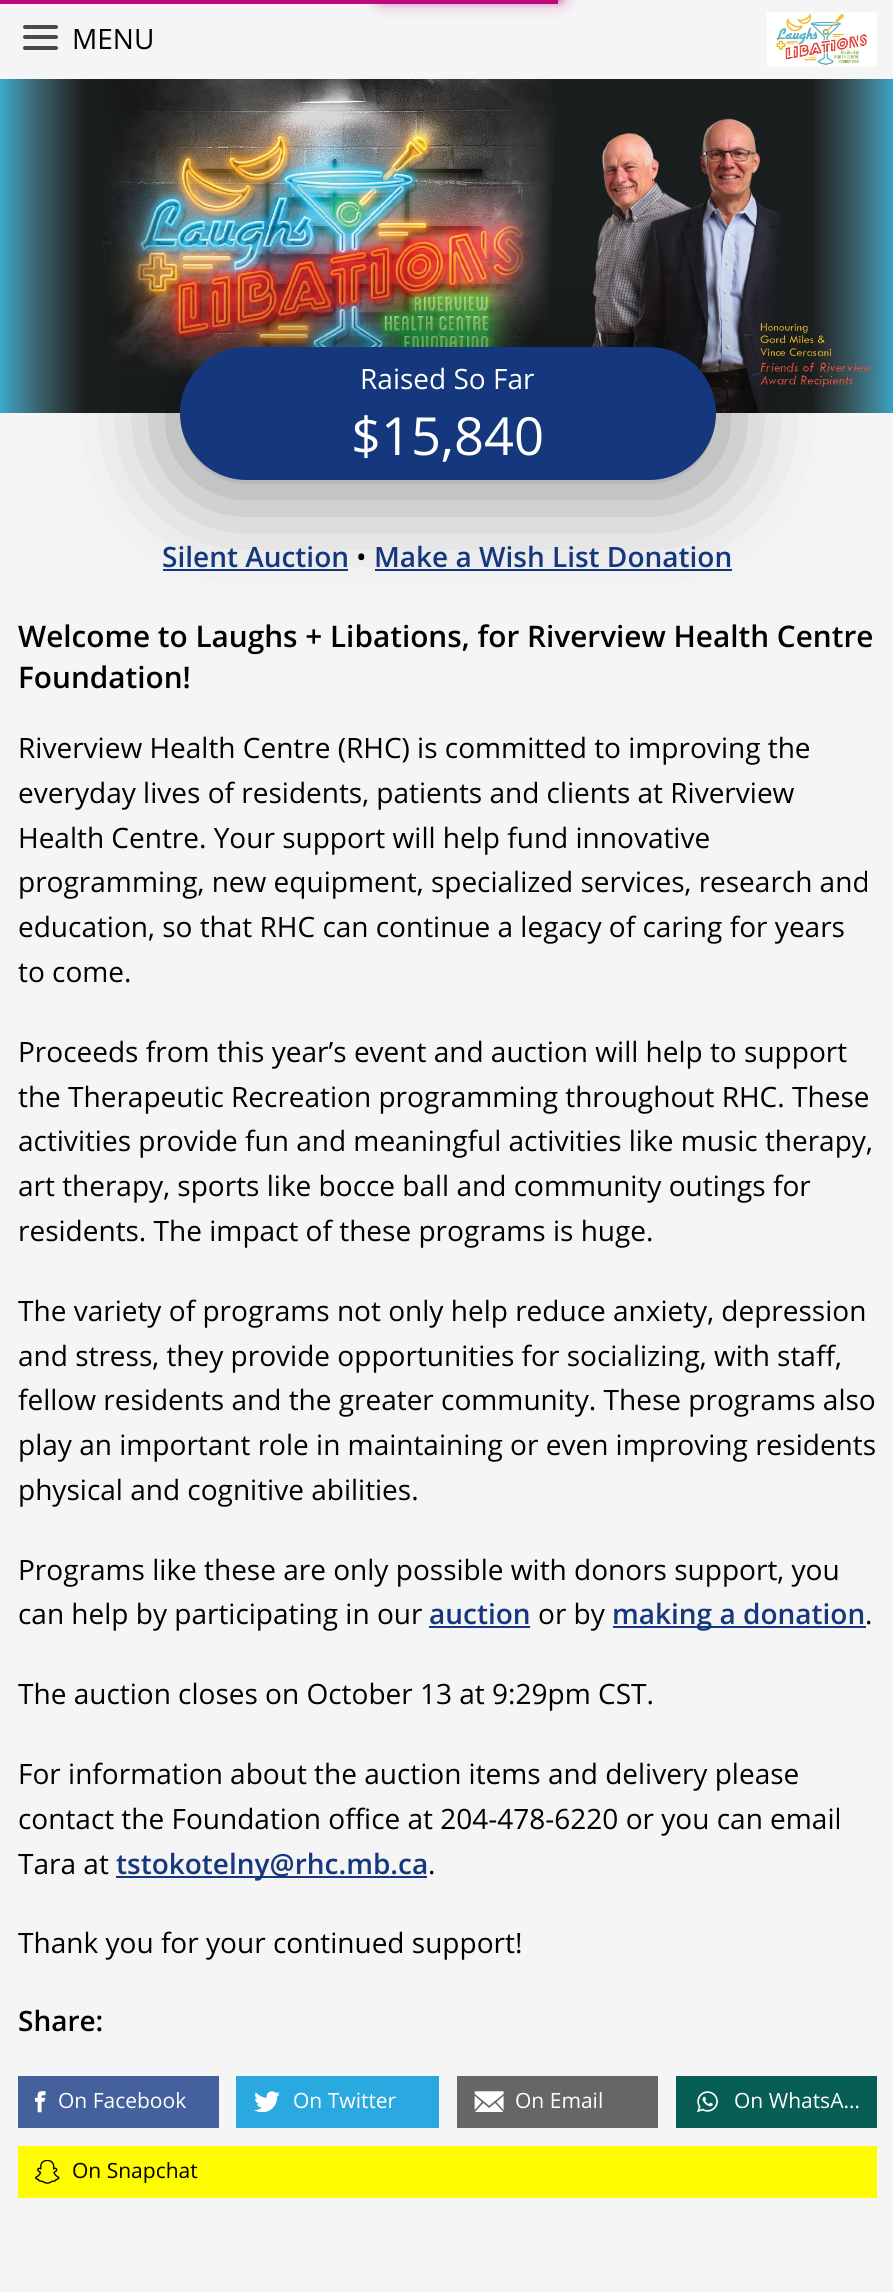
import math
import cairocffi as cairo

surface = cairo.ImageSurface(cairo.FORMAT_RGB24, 893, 2292)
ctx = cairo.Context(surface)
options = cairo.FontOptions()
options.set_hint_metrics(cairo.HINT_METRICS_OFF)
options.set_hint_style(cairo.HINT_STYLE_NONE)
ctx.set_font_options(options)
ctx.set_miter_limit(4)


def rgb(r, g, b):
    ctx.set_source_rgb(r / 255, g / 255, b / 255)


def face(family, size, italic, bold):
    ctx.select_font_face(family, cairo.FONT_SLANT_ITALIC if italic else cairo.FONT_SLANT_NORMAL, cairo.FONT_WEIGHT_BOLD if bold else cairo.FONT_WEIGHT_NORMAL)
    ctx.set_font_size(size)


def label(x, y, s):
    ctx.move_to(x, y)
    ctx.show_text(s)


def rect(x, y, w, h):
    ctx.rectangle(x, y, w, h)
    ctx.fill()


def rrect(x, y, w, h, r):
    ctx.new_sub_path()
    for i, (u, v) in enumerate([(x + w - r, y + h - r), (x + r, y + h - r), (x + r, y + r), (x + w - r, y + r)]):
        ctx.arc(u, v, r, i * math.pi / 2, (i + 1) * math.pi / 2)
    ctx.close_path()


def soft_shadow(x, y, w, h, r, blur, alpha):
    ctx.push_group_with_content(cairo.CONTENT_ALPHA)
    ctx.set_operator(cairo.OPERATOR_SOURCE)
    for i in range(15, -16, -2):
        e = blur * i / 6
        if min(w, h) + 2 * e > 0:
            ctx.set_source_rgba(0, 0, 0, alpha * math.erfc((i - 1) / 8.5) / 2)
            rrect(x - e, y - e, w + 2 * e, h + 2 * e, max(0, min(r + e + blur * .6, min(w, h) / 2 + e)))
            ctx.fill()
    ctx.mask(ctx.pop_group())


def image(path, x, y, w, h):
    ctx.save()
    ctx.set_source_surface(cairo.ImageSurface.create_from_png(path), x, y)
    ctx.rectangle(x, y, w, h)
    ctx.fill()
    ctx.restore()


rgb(245, 245, 245)
ctx.paint()
rgb(188, 10, 127)
rect(0, 0, 558, 4)
rgb(188, 10, 127)
soft_shadow(383, -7, 175, 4, 0, 4.5, 1)
soft_shadow(383, -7, 175, 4, 0, 9, 1)
rgb(74, 74, 74)
rrect(23, 35, 35, 4, 2)
ctx.fill()
rrect(23, 25, 35, 4, 2)
ctx.fill()
rrect(23, 46, 35, 4, 2)
ctx.fill()
face('Open Sans', 28, 0, 0)
rgb(0, 0, 0)
label(72, 49, 'MENU')
image('image0.png', 766, 12, 111, 55)
image('image1.png', 0, 79, 893, 334)
rgb(20, 55, 125)
rect(163, 569, 185, 2)
rect(375, 569, 357, 2)
rgb(0, 0, 0)
soft_shadow(173, 345, 550, 147, 73.5, 50, 0.4)
rgb(20, 55, 125)
rrect(180, 347, 536, 133, 66.5)
ctx.fill()
rgb(255, 255, 255)
label(360, 389, 'Raised So Far')
face('Open Sans', 52.5, 0, 0)
label(351, 455, '$15,840')
face('Open Sans SemiBold', 28, 0, 0)
rgb(20, 55, 125)
label(162, 567, 'Silent Auction')
face('Open Sans', 28, 0, 0)
rgb(0, 0, 0)
label(356, 567, '•')
face('Open Sans SemiBold', 28, 0, 0)
rgb(20, 55, 125)
label(374, 567, 'Make a Wish List Donation')
face('Open Sans SemiBold', 29.75, 0, 0)
rgb(0, 0, 0)
label(18, 647, 'Welcome to Laughs + Libations, for Riverview Health Centre')
label(18, 688, 'Foundation!')
face('Open Sans', 28, 0, 0)
label(18, 758, 'Riverview Health Centre (RHC) is committed to improving the')
label(18, 803, 'everyday lives of residents, patients and clients at Riverview')
label(18, 848, 'Health Centre. Your support will help fund innovative')
label(18, 892, 'programming, new equipment, specialized services, research and')
label(18, 937, 'education, so that RHC can continue a legacy of caring for years')
label(18, 982, 'to come.')
label(18, 1062, 'Proceeds from this year’s event and auction will help to support')
label(18, 1107, 'the Therapeutic Recreation programming throughout RHC. These')
label(18, 1151, 'activities provide fun and meaningful activities like music therapy,')
label(18, 1196, 'art therapy, sports like bocce ball and community outings for')
label(18, 1241, 'residents. The impact of these programs is huge.')
label(18, 1321, 'The variety of programs not only help reduce anxiety, depression')
label(18, 1366, 'and stress, they provide opportunities for socializing, with staff,')
label(18, 1410, 'fellow residents and the greater community. These programs also')
label(18, 1455, 'play an important role in maintaining or even improving residents')
label(18, 1500, 'physical and cognitive abilities.')
label(18, 1580, 'Programs like these are only possible with donors support, you')
label(18, 1624, 'can help by participating in our')
face('Open Sans SemiBold', 28, 0, 0)
rgb(20, 55, 125)
label(429, 1624, 'auction')
rect(429, 1626, 101, 2)
face('Open Sans', 28, 0, 0)
rgb(0, 0, 0)
label(538, 1624, 'or by')
rgb(20, 55, 125)
rect(613, 1626, 253, 2)
face('Open Sans SemiBold', 28, 0, 0)
label(612, 1624, 'making a donation')
face('Open Sans', 28, 0, 0)
rgb(0, 0, 0)
label(865, 1624, '.')
label(18, 1704, 'The auction closes on October 13 at 9:29pm CST.')
label(18, 1784, 'For information about the auction items and delivery please')
label(18, 1829, 'contact the Foundation office at 204-478-6220 or you can email')
label(18, 1874, 'Tara at')
rgb(20, 55, 125)
rect(116, 1876, 311, 2)
face('Open Sans SemiBold', 28, 0, 0)
label(116, 1874, 'tstokotelny@rhc.mb.ca')
face('Open Sans', 28, 0, 0)
rgb(0, 0, 0)
label(428, 1874, '.')
label(18, 1953, 'Thank you for your continued support!')
face('Open Sans SemiBold', 28, 0, 0)
label(18, 2031, 'Share:')
rgb(68, 97, 157)
rect(18, 2076, 201, 52)
image('image2.png', 35, 2091, 11, 22)
face('Open Sans', 21, 0, 0)
rgb(255, 255, 255)
label(58, 2108, 'On Facebook')
rgb(42, 169, 224)
rect(236, 2076, 203, 52)
image('image3.png', 254, 2091, 26, 21)
rgb(255, 255, 255)
label(293, 2108, 'On Twitter')
rgb(102, 102, 102)
rect(457, 2076, 201, 52)
image('image4.png', 474, 2091, 30, 21)
rgb(255, 255, 255)
label(515, 2108, 'On Email')
rgb(7, 94, 84)
rect(676, 2076, 201, 52)
image('image5.png', 697, 2091, 21, 21)
rgb(255, 255, 255)
label(734, 2108, 'On WhatsA…')
rgb(255, 252, 0)
rect(18, 2146, 859, 52)
image('image6.png', 35, 2160, 25, 24)
rgb(0, 0, 0)
label(72, 2178, 'On Snapchat')
surface.write_to_png('render.png')
